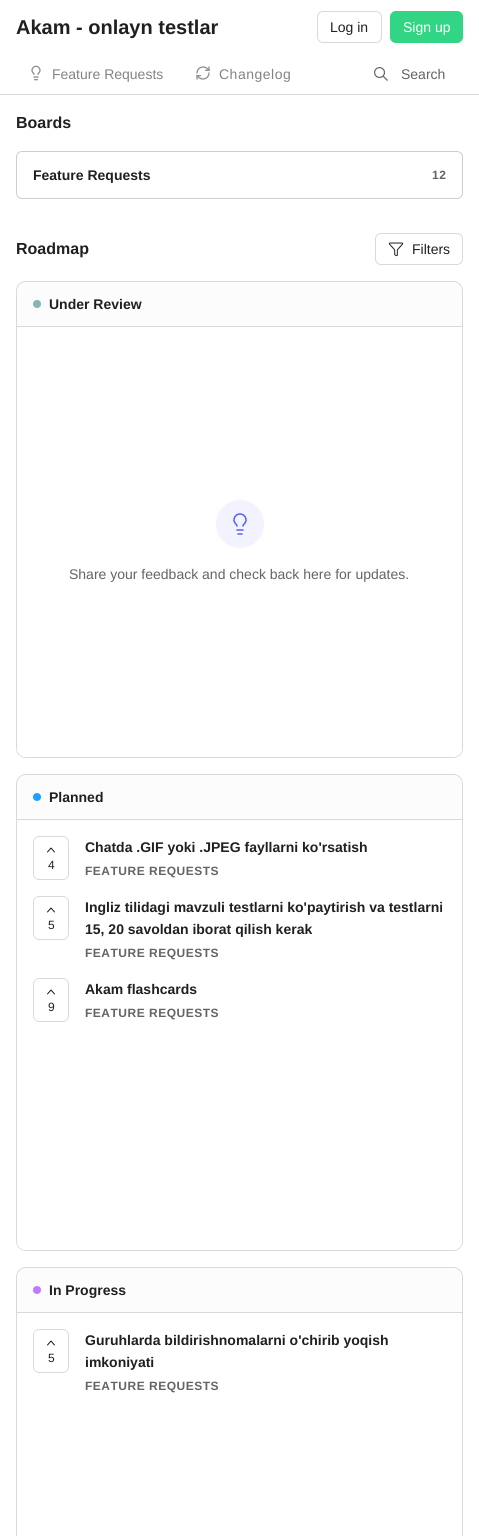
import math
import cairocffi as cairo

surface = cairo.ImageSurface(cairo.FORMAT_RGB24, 479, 1536)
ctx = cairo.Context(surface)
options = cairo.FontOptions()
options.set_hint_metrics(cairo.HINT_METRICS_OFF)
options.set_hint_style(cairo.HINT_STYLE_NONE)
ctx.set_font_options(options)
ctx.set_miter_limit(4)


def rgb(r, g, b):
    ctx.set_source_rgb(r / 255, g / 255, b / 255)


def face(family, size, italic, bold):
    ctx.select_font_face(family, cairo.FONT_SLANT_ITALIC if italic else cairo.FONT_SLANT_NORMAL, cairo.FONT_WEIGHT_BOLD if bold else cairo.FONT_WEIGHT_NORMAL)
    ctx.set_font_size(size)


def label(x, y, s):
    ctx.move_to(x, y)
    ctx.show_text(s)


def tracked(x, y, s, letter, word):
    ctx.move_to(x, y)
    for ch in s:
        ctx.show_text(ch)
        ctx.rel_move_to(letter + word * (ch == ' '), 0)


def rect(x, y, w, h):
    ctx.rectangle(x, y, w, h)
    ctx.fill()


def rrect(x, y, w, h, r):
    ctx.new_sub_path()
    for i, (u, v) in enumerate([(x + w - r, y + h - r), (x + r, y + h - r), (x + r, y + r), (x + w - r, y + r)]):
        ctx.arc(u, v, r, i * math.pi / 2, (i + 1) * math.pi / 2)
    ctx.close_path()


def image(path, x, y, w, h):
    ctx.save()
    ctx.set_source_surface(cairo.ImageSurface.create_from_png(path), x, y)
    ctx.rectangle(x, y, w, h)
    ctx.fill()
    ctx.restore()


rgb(255, 255, 255)
ctx.paint()
rgb(217, 217, 217)
rect(0, 94, 479, 1)
face('Liberation Sans', 20, 0, 1)
rgb(32, 32, 32)
label(16, 34, 'Akam - onlayn testlar')
rrect(317.5, 11.5, 64, 31, 5.5)
rgb(217, 217, 217)
ctx.set_line_width(1)
ctx.stroke()
face('Liberation Sans', 14, 0, 0)
rgb(32, 32, 32)
label(330, 32, 'Log in')
rgb(50, 213, 131)
rrect(390.5, 11.5, 72, 31, 5.5)
ctx.fill_preserve()
ctx.stroke()
rgb(255, 255, 255)
label(403, 32, 'Sign up')
image('image0.png', 31, 65, 10, 16)
rgb(131, 131, 131)
label(52, 79, 'Feature Requests')
image('image1.png', 196, 66, 14, 14)
tracked(219, 79, 'Changelog', 0.5, 0)
image('image2.png', 374, 67, 14, 14)
rgb(100, 100, 100)
label(401, 79, 'Search')
face('Liberation Sans', 16, 0, 1)
rgb(32, 32, 32)
label(16, 128, 'Boards')
rrect(16.5, 151.5, 446, 47, 5.5)
rgb(206, 206, 206)
ctx.stroke()
face('Liberation Sans', 14, 0, 1)
rgb(32, 32, 32)
label(33, 180, 'Feature Requests')
face('Liberation Sans', 12, 0, 1)
rgb(100, 100, 100)
tracked(432, 179, '12', 0.5, 0)
face('Liberation Sans', 16, 0, 1)
rgb(32, 32, 32)
label(16, 254, 'Roadmap')
rrect(375.5, 233.5, 87, 31, 5.5)
rgb(217, 217, 217)
ctx.stroke()
image('image3.png', 388, 242, 16, 15)
face('Liberation Sans', 14, 0, 0)
rgb(32, 32, 32)
label(412, 254, 'Filters')
rrect(16.5, 281.5, 446, 476, 9.5)
rgb(217, 217, 217)
ctx.stroke()
ctx.save()
rrect(17, 282, 445, 475, 9)
ctx.clip()
rgb(252, 252, 252)
ctx.new_path()
ctx.move_to(27, 282)
ctx.line_to(452, 282)
ctx.curve_to(457.5, 282, 462, 286.5, 462, 292)
ctx.line_to(462, 327)
ctx.line_to(17, 327)
ctx.line_to(17, 292)
ctx.curve_to(17, 286.5, 21.5, 282, 27, 282)
ctx.close_path()
ctx.fill()
ctx.restore()
rect(17, 326, 445, 1)
rgb(133, 181, 181)
ctx.arc(37, 304, 4, 0, 2 * math.pi)
ctx.fill()
face('Liberation Sans', 14, 0, 1)
rgb(32, 32, 32)
label(49, 309, 'Under Review')
rgb(255, 255, 255)
ctx.new_path()
ctx.move_to(17, 327)
ctx.line_to(462, 327)
ctx.line_to(462, 748)
ctx.curve_to(462, 753, 458, 757, 453, 757)
ctx.line_to(26, 757)
ctx.curve_to(21, 757, 17, 753, 17, 748)
ctx.close_path()
ctx.fill()
rgb(242, 243, 255)
ctx.arc(240, 524, 24, 0, 2 * math.pi)
ctx.fill()
image('image4.png', 233, 513, 14, 22)
face('Liberation Sans', 14, 0, 0)
rgb(100, 100, 100)
label(69, 579, 'Share your feedback and check back here for updates.')
rrect(16.5, 774.5, 446, 476, 9.5)
rgb(217, 217, 217)
ctx.stroke()
ctx.save()
rrect(17, 775, 445, 475, 9)
ctx.clip()
rgb(252, 252, 252)
ctx.new_path()
ctx.move_to(27, 775)
ctx.line_to(452, 775)
ctx.curve_to(457.5, 775, 462, 779.5, 462, 785)
ctx.line_to(462, 820)
ctx.line_to(17, 820)
ctx.line_to(17, 785)
ctx.curve_to(17, 779.5, 21.5, 775, 27, 775)
ctx.close_path()
ctx.fill()
ctx.restore()
rect(17, 819, 445, 1)
rgb(31, 160, 255)
ctx.arc(37, 797, 4, 0, 2 * math.pi)
ctx.fill()
face('Liberation Sans', 14, 0, 1)
rgb(32, 32, 32)
label(49, 802, 'Planned')
rgb(255, 255, 255)
ctx.new_path()
ctx.move_to(17, 820)
ctx.line_to(462, 820)
ctx.line_to(462, 1241)
ctx.curve_to(462, 1246, 458, 1250, 453, 1250)
ctx.line_to(26, 1250)
ctx.curve_to(21, 1250, 17, 1246, 17, 1241)
ctx.close_path()
ctx.fill()
rgb(217, 217, 217)
ctx.new_path()
ctx.move_to(39, 836)
ctx.line_to(63, 836)
ctx.curve_to(66, 836, 69, 839, 69, 842)
ctx.line_to(69, 874)
ctx.curve_to(69, 877, 66, 880, 63, 880)
ctx.line_to(39, 880)
ctx.curve_to(36, 880, 33, 877, 33, 874)
ctx.line_to(33, 842)
ctx.curve_to(33, 839, 36, 836, 39, 836)
ctx.close_path()
ctx.fill()
rgb(255, 255, 255)
rrect(34, 837, 34, 42, 5)
ctx.fill()
ctx.new_path()
ctx.move_to(54.5, 852)
ctx.line_to(51, 848)
ctx.line_to(47.5, 852)
rgb(0, 0, 0)
ctx.set_line_width(0.9)
ctx.set_line_cap(cairo.LINE_CAP_ROUND)
ctx.set_line_join(cairo.LINE_JOIN_ROUND)
ctx.stroke()
face('Liberation Sans', 12, 0, 0)
rgb(32, 32, 32)
label(48, 869, '4')
face('Liberation Sans', 14, 0, 1)
label(85, 852, 'Chatda .GIF yoki .JPEG fayllarni ko\'rsatish')
face('Liberation Sans', 12, 0, 1)
rgb(100, 100, 100)
tracked(85, 875, 'FEATURE REQUESTS', 0.5, 0)
rgb(217, 217, 217)
ctx.new_path()
ctx.move_to(39, 896)
ctx.line_to(63, 896)
ctx.curve_to(66, 896, 69, 899, 69, 902)
ctx.line_to(69, 934)
ctx.curve_to(69, 937, 66, 940, 63, 940)
ctx.line_to(39, 940)
ctx.curve_to(36, 940, 33, 937, 33, 934)
ctx.line_to(33, 902)
ctx.curve_to(33, 899, 36, 896, 39, 896)
ctx.close_path()
ctx.fill()
rgb(255, 255, 255)
rrect(34, 897, 34, 42, 5)
ctx.fill()
ctx.new_path()
ctx.move_to(54.5, 912)
ctx.line_to(51, 908)
ctx.line_to(47.5, 912)
rgb(0, 0, 0)
ctx.stroke()
face('Liberation Sans', 12, 0, 0)
rgb(32, 32, 32)
label(48, 929, '5')
face('Liberation Sans', 14, 0, 1)
label(85, 912, 'Ingliz tilidagi mavzuli testlarni ko\'paytirish va testlarni')
label(85, 934, '15, 20 savoldan iborat qilish kerak')
face('Liberation Sans', 12, 0, 1)
rgb(100, 100, 100)
tracked(85, 957, 'FEATURE REQUESTS', 0.5, 0)
rgb(217, 217, 217)
ctx.new_path()
ctx.move_to(39, 978)
ctx.line_to(63, 978)
ctx.curve_to(66, 978, 69, 981, 69, 984)
ctx.line_to(69, 1016)
ctx.curve_to(69, 1019, 66, 1022, 63, 1022)
ctx.line_to(39, 1022)
ctx.curve_to(36, 1022, 33, 1019, 33, 1016)
ctx.line_to(33, 984)
ctx.curve_to(33, 981, 36, 978, 39, 978)
ctx.close_path()
ctx.fill()
rgb(255, 255, 255)
rrect(34, 979, 34, 42, 5)
ctx.fill()
ctx.new_path()
ctx.move_to(54.5, 994)
ctx.line_to(51, 990)
ctx.line_to(47.5, 994)
rgb(0, 0, 0)
ctx.stroke()
face('Liberation Sans', 12, 0, 0)
rgb(32, 32, 32)
label(48, 1011, '9')
face('Liberation Sans', 14, 0, 1)
label(85, 994, 'Akam flashcards')
face('Liberation Sans', 12, 0, 1)
rgb(100, 100, 100)
tracked(85, 1017, 'FEATURE REQUESTS', 0.5, 0)
rrect(16.5, 1267.5, 446, 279, 9.5)
rgb(217, 217, 217)
ctx.set_line_width(1)
ctx.set_line_cap(cairo.LINE_CAP_BUTT)
ctx.set_line_join(cairo.LINE_JOIN_MITER)
ctx.stroke()
ctx.save()
rrect(17, 1268, 445, 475, 9)
ctx.clip()
rgb(252, 252, 252)
ctx.new_path()
ctx.move_to(27, 1268)
ctx.line_to(452, 1268)
ctx.curve_to(457.5, 1268, 462, 1272.5, 462, 1278)
ctx.line_to(462, 1313)
ctx.line_to(17, 1313)
ctx.line_to(17, 1278)
ctx.curve_to(17, 1272.5, 21.5, 1268, 27, 1268)
ctx.close_path()
ctx.fill()
ctx.restore()
rect(17, 1312, 445, 1)
rgb(193, 122, 255)
ctx.arc(37, 1290, 4, 0, 2 * math.pi)
ctx.fill()
face('Liberation Sans', 14, 0, 1)
rgb(32, 32, 32)
label(49, 1295, 'In Progress')
rgb(217, 217, 217)
ctx.new_path()
ctx.move_to(39, 1329)
ctx.line_to(63, 1329)
ctx.curve_to(66, 1329, 69, 1332, 69, 1335)
ctx.line_to(69, 1367)
ctx.curve_to(69, 1370, 66, 1373, 63, 1373)
ctx.line_to(39, 1373)
ctx.curve_to(36, 1373, 33, 1370, 33, 1367)
ctx.line_to(33, 1335)
ctx.curve_to(33, 1332, 36, 1329, 39, 1329)
ctx.close_path()
ctx.fill()
rgb(255, 255, 255)
rrect(34, 1330, 34, 42, 5)
ctx.fill()
ctx.new_path()
ctx.move_to(54.5, 1345)
ctx.line_to(51, 1341)
ctx.line_to(47.5, 1345)
rgb(0, 0, 0)
ctx.set_line_width(0.9)
ctx.set_line_cap(cairo.LINE_CAP_ROUND)
ctx.set_line_join(cairo.LINE_JOIN_ROUND)
ctx.stroke()
face('Liberation Sans', 12, 0, 0)
rgb(32, 32, 32)
label(48, 1362, '5')
face('Liberation Sans', 14, 0, 1)
label(85, 1345, 'Guruhlarda bildirishnomalarni o\'chirib yoqish')
label(85, 1367, 'imkoniyati')
face('Liberation Sans', 12, 0, 1)
rgb(100, 100, 100)
tracked(85, 1390, 'FEATURE REQUESTS', 0.5, 0)
surface.write_to_png('render.png')
